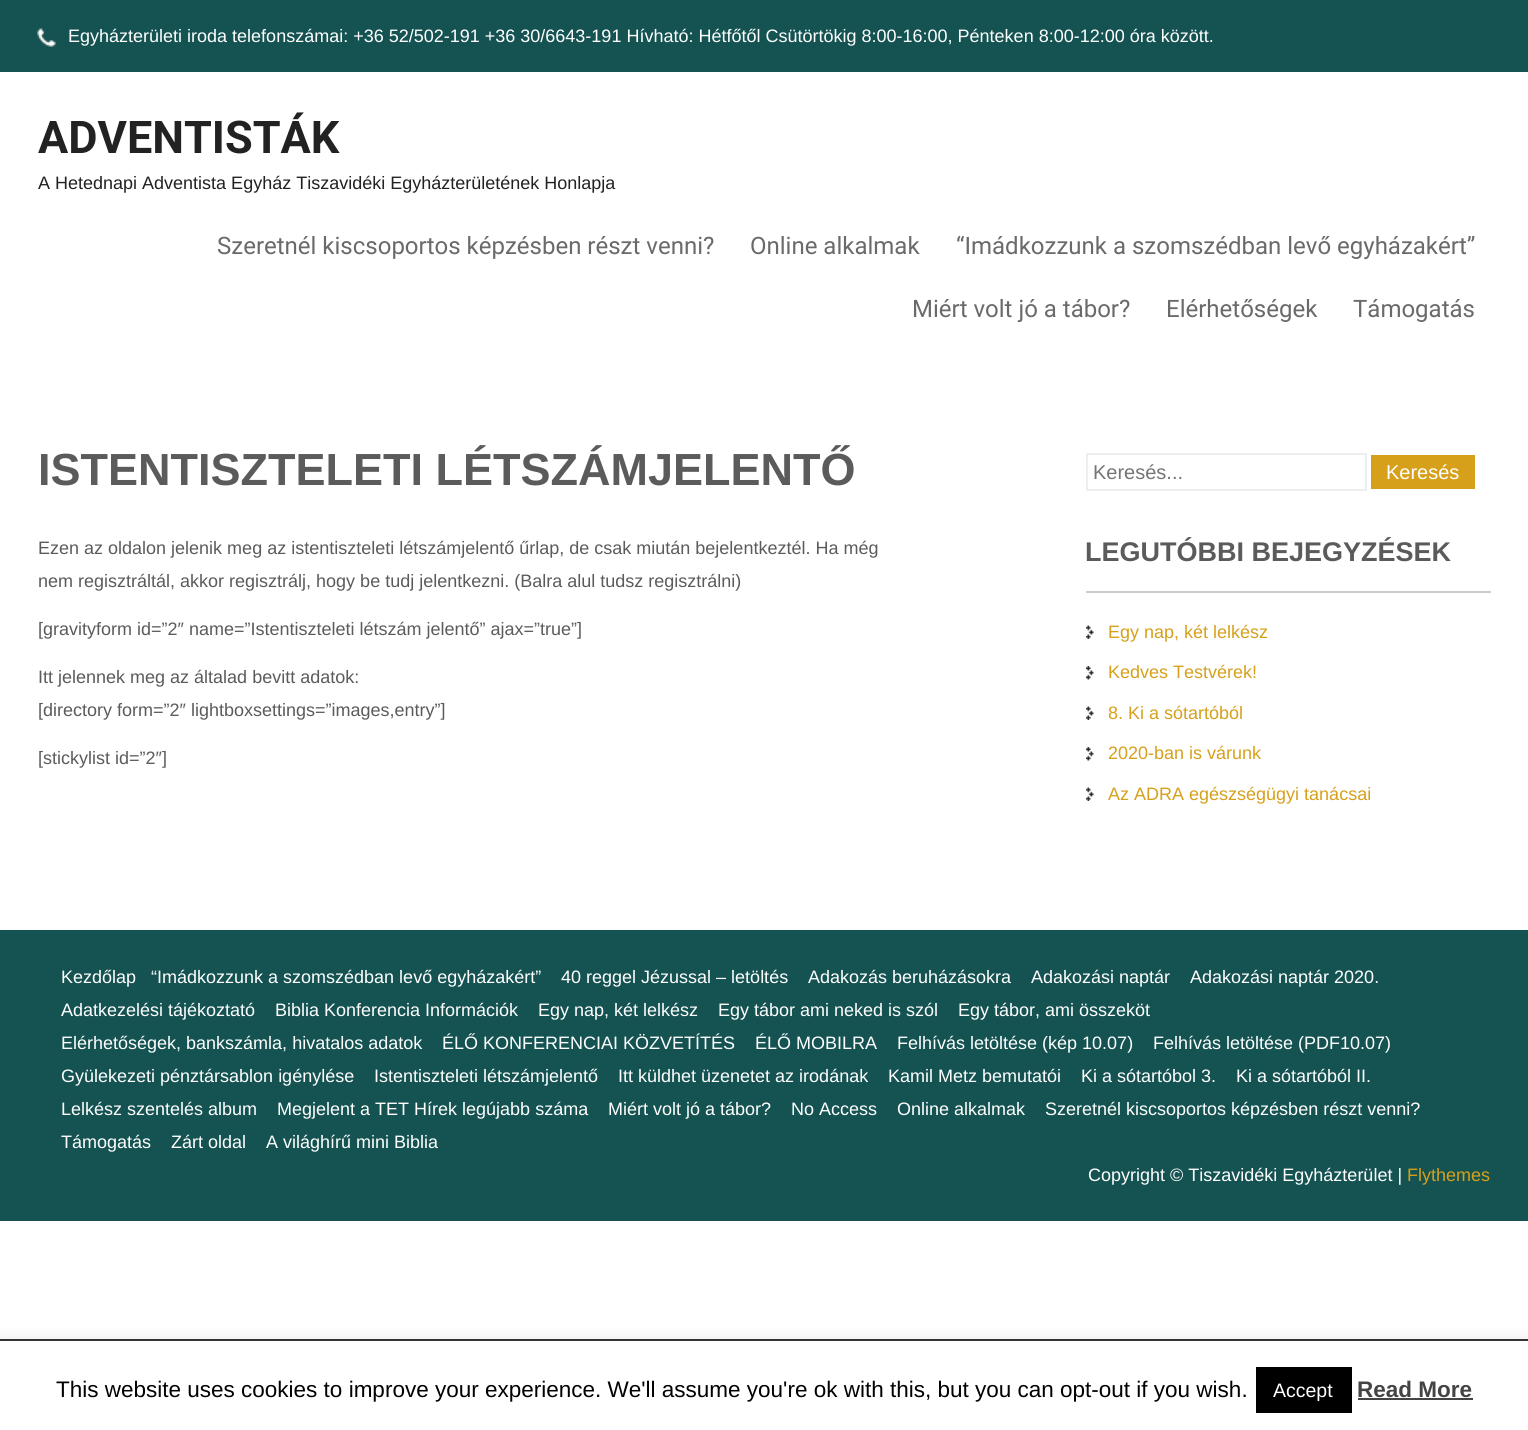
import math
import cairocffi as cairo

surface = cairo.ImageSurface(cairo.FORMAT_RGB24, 1528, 1430)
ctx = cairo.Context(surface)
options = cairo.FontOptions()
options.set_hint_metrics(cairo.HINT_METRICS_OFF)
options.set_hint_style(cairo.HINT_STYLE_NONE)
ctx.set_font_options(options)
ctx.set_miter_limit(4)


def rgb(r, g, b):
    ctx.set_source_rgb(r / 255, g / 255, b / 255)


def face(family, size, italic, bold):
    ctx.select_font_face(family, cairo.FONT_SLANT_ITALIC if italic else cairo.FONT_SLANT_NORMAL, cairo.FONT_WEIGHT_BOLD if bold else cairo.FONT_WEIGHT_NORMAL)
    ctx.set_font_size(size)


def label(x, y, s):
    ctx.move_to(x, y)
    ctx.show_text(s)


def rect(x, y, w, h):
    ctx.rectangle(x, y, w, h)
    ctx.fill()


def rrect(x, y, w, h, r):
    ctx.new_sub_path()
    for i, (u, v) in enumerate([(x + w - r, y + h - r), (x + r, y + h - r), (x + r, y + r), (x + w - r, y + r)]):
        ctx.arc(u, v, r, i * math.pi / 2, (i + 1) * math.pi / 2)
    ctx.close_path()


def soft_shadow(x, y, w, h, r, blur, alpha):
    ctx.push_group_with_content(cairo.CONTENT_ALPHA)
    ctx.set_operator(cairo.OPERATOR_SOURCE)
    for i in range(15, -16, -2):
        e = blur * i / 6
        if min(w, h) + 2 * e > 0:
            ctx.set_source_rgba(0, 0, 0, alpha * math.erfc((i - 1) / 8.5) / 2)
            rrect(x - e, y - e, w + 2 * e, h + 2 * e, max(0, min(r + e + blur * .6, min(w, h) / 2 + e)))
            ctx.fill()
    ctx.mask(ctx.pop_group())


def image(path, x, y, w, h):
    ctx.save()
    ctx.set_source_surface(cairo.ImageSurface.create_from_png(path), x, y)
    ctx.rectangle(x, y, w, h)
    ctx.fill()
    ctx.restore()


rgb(255, 255, 255)
ctx.paint()
rgb(21, 83, 82)
rect(0, 0, 1528, 72)
image('image0.png', 37, 28, 19, 19)
face('Liberation Sans', 18, 0, 0)
rgb(255, 255, 255)
label(68, 42, 'Egyházterületi iroda telefonszámai: +36 52/502-191 +36 30/6643-191 Hívható: Hétfőtől Csütörtökig 8:00-16:00, Pénteken 8:00-12:00 óra között.')
face('Roboto', 45, 0, 1)
rgb(34, 34, 34)
label(38, 153, 'ADVENTISTÁK')
face('Liberation Sans', 18, 0, 0)
label(38, 189, 'A Hetednapi Adventista Egyház Tiszavidéki Egyházterületének Honlapja')
face('Roboto', 24, 0, 0)
rgb(106, 106, 106)
label(217, 254, 'Szeretnél kiscsoportos képzésben részt venni?')
label(750, 254, 'Online alkalmak')
label(956, 254, '“Imádkozzunk a szomszédban levő egyházakért”')
label(912, 317, 'Miért volt jó a tábor?')
label(1166, 317, 'Elérhetőségek')
label(1353, 317, 'Támogatás')
face('Liberation Sans', 45, 0, 1)
rgb(91, 91, 91)
label(38, 485, 'ISTENTISZTELETI LÉTSZÁMJELENTŐ')
face('Liberation Sans', 18, 0, 0)
label(38, 554, 'Ezen az oldalon jelenik meg az istentiszteleti létszámjelentő űrlap, de csak miután bejelentkeztél. Ha még')
label(38, 587, 'nem regisztráltál, akkor regisztrálj, hogy be tudj jelentkezni. (Balra alul tudsz regisztrálni)')
label(38, 635, '[gravityform id=”2″ name=”Istentiszteleti létszám jelentő” ajax=”true”]')
label(38, 683, 'Itt jelennek meg az általad bevitt adatok:')
label(38, 716, '[directory form=”2″ lightboxsettings=”images,entry”]')
label(38, 764, '[stickylist id=”2″]')
ctx.rectangle(1087, 454, 279, 36)
rgb(238, 238, 238)
ctx.stroke()
face('Liberation Sans', 20, 0, 0)
rgb(117, 117, 117)
label(1093, 479, 'Keresés...')
rgb(214, 160, 26)
rect(1371, 455, 104, 34)
rgb(255, 255, 255)
label(1386, 479, 'Keresés')
rgb(204, 204, 204)
rect(1086, 591, 405, 2)
face('Liberation Sans', 27, 0, 1)
rgb(91, 91, 91)
label(1085, 561, 'LEGUTÓBBI BEJEGYZÉSEK')
image('image1.png', 1086, 625, 8, 14)
face('Liberation Sans', 18, 0, 0)
rgb(214, 160, 26)
label(1108, 638, 'Egy nap, két lelkész')
image('image2.png', 1086, 666, 8, 14)
label(1108, 678, 'Kedves Testvérek!')
image('image1.png', 1086, 706, 8, 14)
label(1108, 719, '8. Ki a sótartóból')
image('image2.png', 1086, 747, 8, 14)
label(1108, 759, '2020-ban is várunk')
image('image1.png', 1086, 787, 8, 14)
label(1108, 800, 'Az ADRA egészségügyi tanácsai')
rgb(21, 83, 82)
rect(0, 930, 1528, 291)
rgb(255, 255, 255)
label(61, 983, 'Kezdőlap')
label(151, 983, '“Imádkozzunk a szomszédban levő egyházakért”')
label(561, 983, '40 reggel Jézussal – letöltés')
label(808, 983, 'Adakozás beruházásokra')
label(1031, 983, 'Adakozási naptár')
label(1190, 983, 'Adakozási naptár 2020.')
label(61, 1016, 'Adatkezelési tájékoztató')
label(275, 1016, 'Biblia Konferencia Információk')
label(538, 1016, 'Egy nap, két lelkész')
label(718, 1016, 'Egy tábor ami neked is szól')
label(958, 1016, 'Egy tábor, ami összeköt')
label(61, 1049, 'Elérhetőségek, bankszámla, hivatalos adatok')
label(442, 1049, 'ÉLŐ KONFERENCIAI KÖZVETÍTÉS')
label(755, 1049, 'ÉLŐ MOBILRA')
label(897, 1049, 'Felhívás letöltése (kép 10.07)')
label(1153, 1049, 'Felhívás letöltése (PDF10.07)')
label(61, 1082, 'Gyülekezeti pénztársablon igénylése')
label(374, 1082, 'Istentiszteleti létszámjelentő')
label(618, 1082, 'Itt küldhet üzenetet az irodának')
label(888, 1082, 'Kamil Metz bemutatói')
label(1081, 1082, 'Ki a sótartóbol 3.')
label(1236, 1082, 'Ki a sótartóból II.')
label(61, 1115, 'Lelkész szentelés album')
label(277, 1115, 'Megjelent a TET Hírek legújabb száma')
label(608, 1115, 'Miért volt jó a tábor?')
label(791, 1115, 'No Access')
label(897, 1115, 'Online alkalmak')
label(1045, 1115, 'Szeretnél kiscsoportos képzésben részt venni?')
label(61, 1148, 'Támogatás')
label(171, 1148, 'Zárt oldal')
label(266, 1148, 'A világhírű mini Biblia')
label(1088, 1181, 'Copyright © Tiszavidéki Egyházterület |')
rgb(214, 160, 26)
label(1407, 1181, 'Flythemes')
rgb(32, 32, 32)
rect(0, 1339, 1528, 2)
rgb(172, 171, 171)
soft_shadow(0, 1340, 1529, 90, 0, 7.5, 0.3)
rgb(255, 255, 255)
rect(0, 1341, 1528, 89)
face('Liberation Sans', 22.5, 0, 0)
rgb(0, 0, 0)
label(56, 1397, 'This website uses cookies to improve your experience. We\'ll assume you\'re ok with this, but you can opt-out if you wish.')
rect(1256, 1367, 96, 46)
face('Liberation Sans', 19.5, 0, 0)
rgb(255, 255, 255)
label(1273, 1397, 'Accept')
face('Liberation Sans', 22.5, 0, 1)
rgb(68, 68, 68)
label(1357, 1397, 'Read More')
rect(1358, 1398, 115, 2)
surface.write_to_png('render.png')
